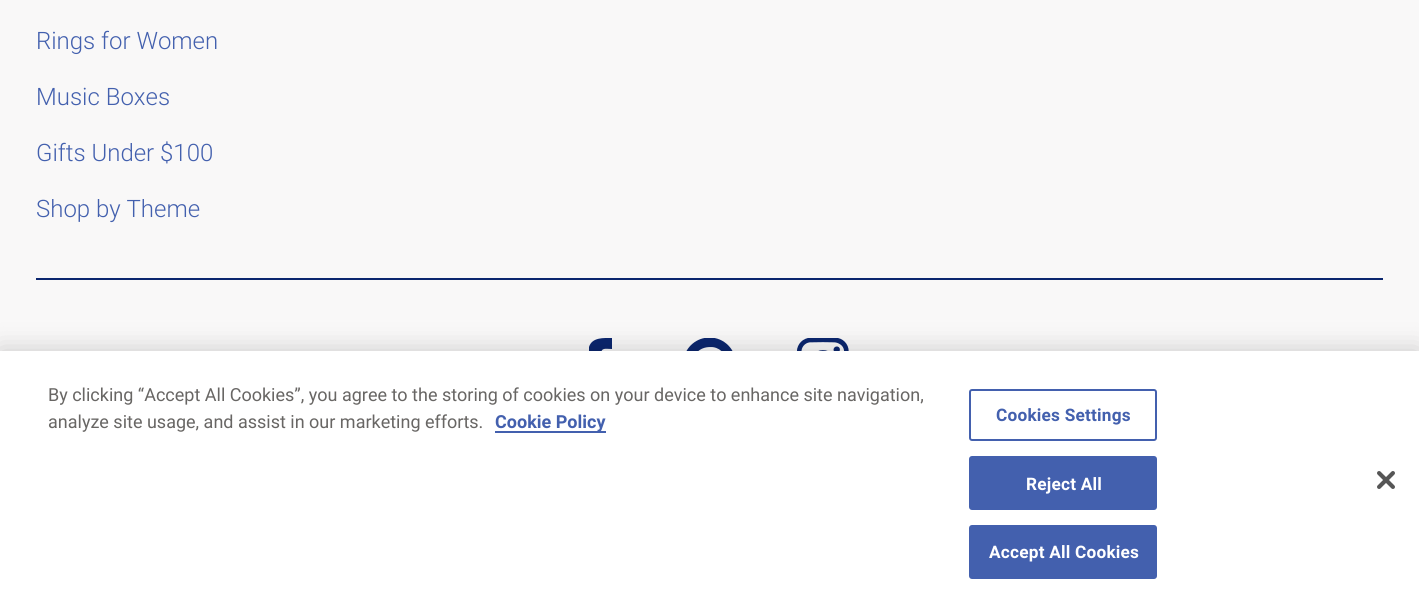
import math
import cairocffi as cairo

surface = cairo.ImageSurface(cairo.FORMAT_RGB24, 1419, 608)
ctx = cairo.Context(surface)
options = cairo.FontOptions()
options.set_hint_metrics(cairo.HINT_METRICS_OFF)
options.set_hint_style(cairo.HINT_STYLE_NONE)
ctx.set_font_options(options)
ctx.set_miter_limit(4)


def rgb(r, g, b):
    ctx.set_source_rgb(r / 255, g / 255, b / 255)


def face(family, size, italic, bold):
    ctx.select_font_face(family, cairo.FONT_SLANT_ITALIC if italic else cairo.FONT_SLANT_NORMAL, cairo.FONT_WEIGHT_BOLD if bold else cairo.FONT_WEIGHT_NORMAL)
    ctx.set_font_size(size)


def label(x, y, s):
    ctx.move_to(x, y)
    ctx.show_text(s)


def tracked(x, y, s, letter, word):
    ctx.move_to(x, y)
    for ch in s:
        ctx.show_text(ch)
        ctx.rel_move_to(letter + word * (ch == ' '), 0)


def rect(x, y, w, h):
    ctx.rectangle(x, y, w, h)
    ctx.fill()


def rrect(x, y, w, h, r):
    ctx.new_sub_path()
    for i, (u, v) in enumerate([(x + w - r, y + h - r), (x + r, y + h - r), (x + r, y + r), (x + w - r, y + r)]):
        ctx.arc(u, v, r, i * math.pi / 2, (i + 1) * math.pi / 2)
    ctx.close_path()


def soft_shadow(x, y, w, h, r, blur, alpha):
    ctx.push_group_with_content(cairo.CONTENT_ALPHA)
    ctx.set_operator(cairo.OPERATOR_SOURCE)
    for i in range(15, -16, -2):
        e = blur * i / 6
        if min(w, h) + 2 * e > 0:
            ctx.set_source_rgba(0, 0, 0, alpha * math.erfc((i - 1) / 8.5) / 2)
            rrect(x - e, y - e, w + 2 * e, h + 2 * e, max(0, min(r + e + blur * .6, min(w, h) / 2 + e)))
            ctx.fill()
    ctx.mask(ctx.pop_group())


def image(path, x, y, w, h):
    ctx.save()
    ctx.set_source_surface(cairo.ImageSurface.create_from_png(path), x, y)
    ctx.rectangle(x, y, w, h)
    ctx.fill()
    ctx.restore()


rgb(249, 248, 248)
ctx.paint()
rgb(11, 38, 110)
rect(36, 278, 1347, 2)
face('Roboto Light', 24, 0, 0)
rgb(67, 96, 174)
label(36, 49, 'Rings for Women')
label(36, 105, 'Music Boxes')
label(36, 161, 'Gifts Under $100')
label(36, 217, 'Shop by Theme')
rgb(11, 38, 110)
ctx.new_path()
ctx.move_to(612, 349)
ctx.curve_to(605, 349, 601, 347, 601, 355)
ctx.line_to(610, 355)
ctx.line_to(610, 367)
ctx.line_to(601, 367)
ctx.line_to(601, 390)
ctx.line_to(589, 390)
ctx.line_to(589, 367)
ctx.line_to(580, 367)
ctx.line_to(580, 355)
ctx.line_to(589, 355)
ctx.line_to(589, 347)
ctx.curve_to(592, 337, 604, 338, 612, 338)
ctx.close_path()
ctx.fill()
image('image0.png', 686, 338, 47, 13)
image('image1.png', 797, 338, 52, 13)
rgb(0, 0, 0)
soft_shadow(0, 351, 1419, 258, 0, 13.5, 0.2)
rgb(255, 255, 255)
rect(0, 351, 1419, 257)
face('Roboto', 18, 0, 0)
rgb(104, 102, 100)
label(48, 401, 'By clicking “Accept All Cookies”, you agree to the storing of cookies on your device to enhance site navigation,')
label(48, 428, 'analyze site usage, and assist in our marketing efforts.')
rgb(67, 96, 174)
rect(495, 431, 111, 2)
face('Roboto', 18, 0, 1)
label(495, 428, 'Cookie Policy')
rrect(970, 390, 186, 50, 2)
ctx.stroke()
face('Roboto', 17.25, 0, 1)
tracked(996, 421, 'Cookies Settings', 0.2, 0)
rrect(970, 457, 186, 52, 2)
ctx.fill_preserve()
ctx.stroke()
rgb(255, 255, 255)
tracked(1026, 490, 'Reject All', 0.2, 0)
rgb(67, 96, 174)
rrect(970, 526, 186, 52, 2)
ctx.fill_preserve()
ctx.stroke()
rgb(255, 255, 255)
tracked(989, 558, 'Accept All Cookies', 0.2, 0)
image('image2.png', 1377, 471, 18, 18)
surface.write_to_png('render.png')
